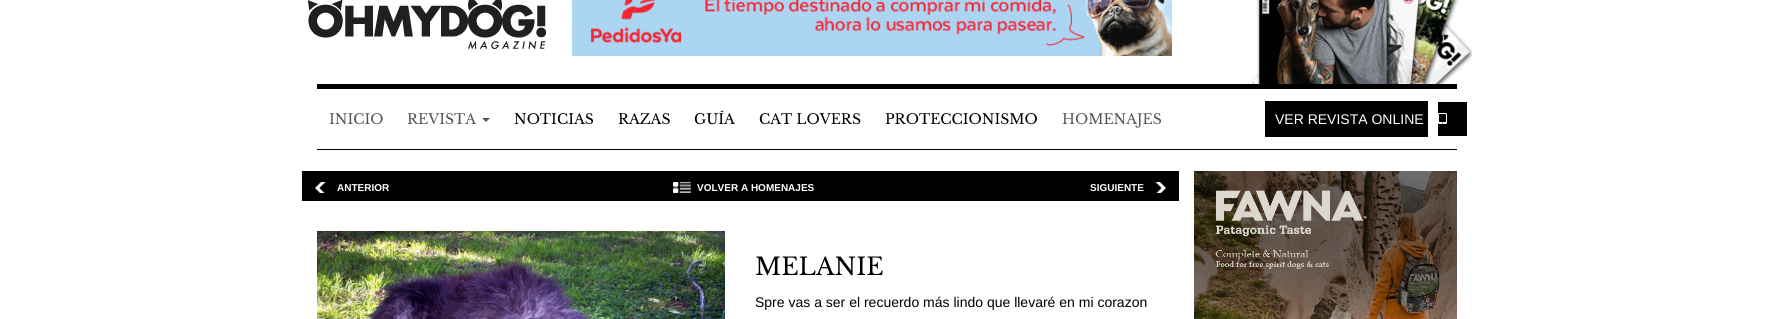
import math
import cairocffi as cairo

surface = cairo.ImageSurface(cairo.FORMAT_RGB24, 1773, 319)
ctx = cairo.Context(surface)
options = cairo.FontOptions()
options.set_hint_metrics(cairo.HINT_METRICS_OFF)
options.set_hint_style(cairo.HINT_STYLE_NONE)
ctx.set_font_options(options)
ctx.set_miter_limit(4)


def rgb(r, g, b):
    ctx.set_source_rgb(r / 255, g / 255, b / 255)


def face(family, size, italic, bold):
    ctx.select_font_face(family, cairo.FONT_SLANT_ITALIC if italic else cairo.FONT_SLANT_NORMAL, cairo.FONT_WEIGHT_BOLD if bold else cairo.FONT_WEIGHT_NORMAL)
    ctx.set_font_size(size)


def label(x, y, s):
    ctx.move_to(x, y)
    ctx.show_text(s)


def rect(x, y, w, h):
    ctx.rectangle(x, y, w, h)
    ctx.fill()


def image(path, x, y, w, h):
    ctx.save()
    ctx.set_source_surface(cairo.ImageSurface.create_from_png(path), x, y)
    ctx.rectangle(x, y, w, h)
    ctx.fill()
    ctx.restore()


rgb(255, 255, 255)
ctx.paint()
image('image0.png', 1252, 0, 220, 84)
image('image1.png', 307, 0, 239, 49)
image('image2.png', 572, 0, 600, 56)
rgb(0, 0, 0)
rect(317, 84, 1140, 5)
rect(317, 149, 1140, 1)
face('Libre Baskerville', 14, 0, 0)
rgb(85, 85, 85)
label(329, 124, 'INICIO')
label(407, 124, 'REVISTA')
ctx.new_path()
ctx.move_to(482, 118)
ctx.line_to(490, 118)
ctx.line_to(486, 122)
ctx.close_path()
ctx.fill()
rgb(0, 0, 0)
label(514, 124, 'NOTICIAS')
label(618, 124, 'RAZAS')
label(694, 124, 'GUÍA')
label(759, 124, 'CAT LOVERS')
label(885, 124, 'PROTECCIONISMO')
rgb(85, 85, 85)
label(1062, 124, 'HOMENAJES')
rgb(0, 0, 0)
rect(1265, 101, 163, 36)
rect(1438, 102, 29, 34)
face('Liberation Sans', 14, 0, 0)
rgb(255, 255, 255)
label(1275, 124, 'VER REVISTA ONLINE')
image('image3.png', 1438, 113, 9, 11)
rgb(0, 0, 0)
rect(302, 171, 877, 30)
image('image4.png', 315, 182, 11, 11)
face('Liberation Sans', 10, 0, 1)
rgb(255, 255, 255)
label(337, 191, 'ANTERIOR')
image('image5.png', 673, 182, 18, 11)
label(697, 191, 'VOLVER A HOMENAJES')
label(1090, 191, 'SIGUIENTE')
image('image6.png', 1155, 182, 11, 11)
image('image7.png', 317, 231, 408, 88)
face('Libre Baskerville', 24, 0, 0)
rgb(0, 0, 0)
label(755, 275, 'MELANIE')
face('Liberation Sans', 14, 0, 0)
label(755, 307, 'Spre vas a ser el recuerdo más lindo que llevaré en mi corazon')
image('image8.png', 1194, 171, 263, 148)
surface.write_to_png('render.png')
